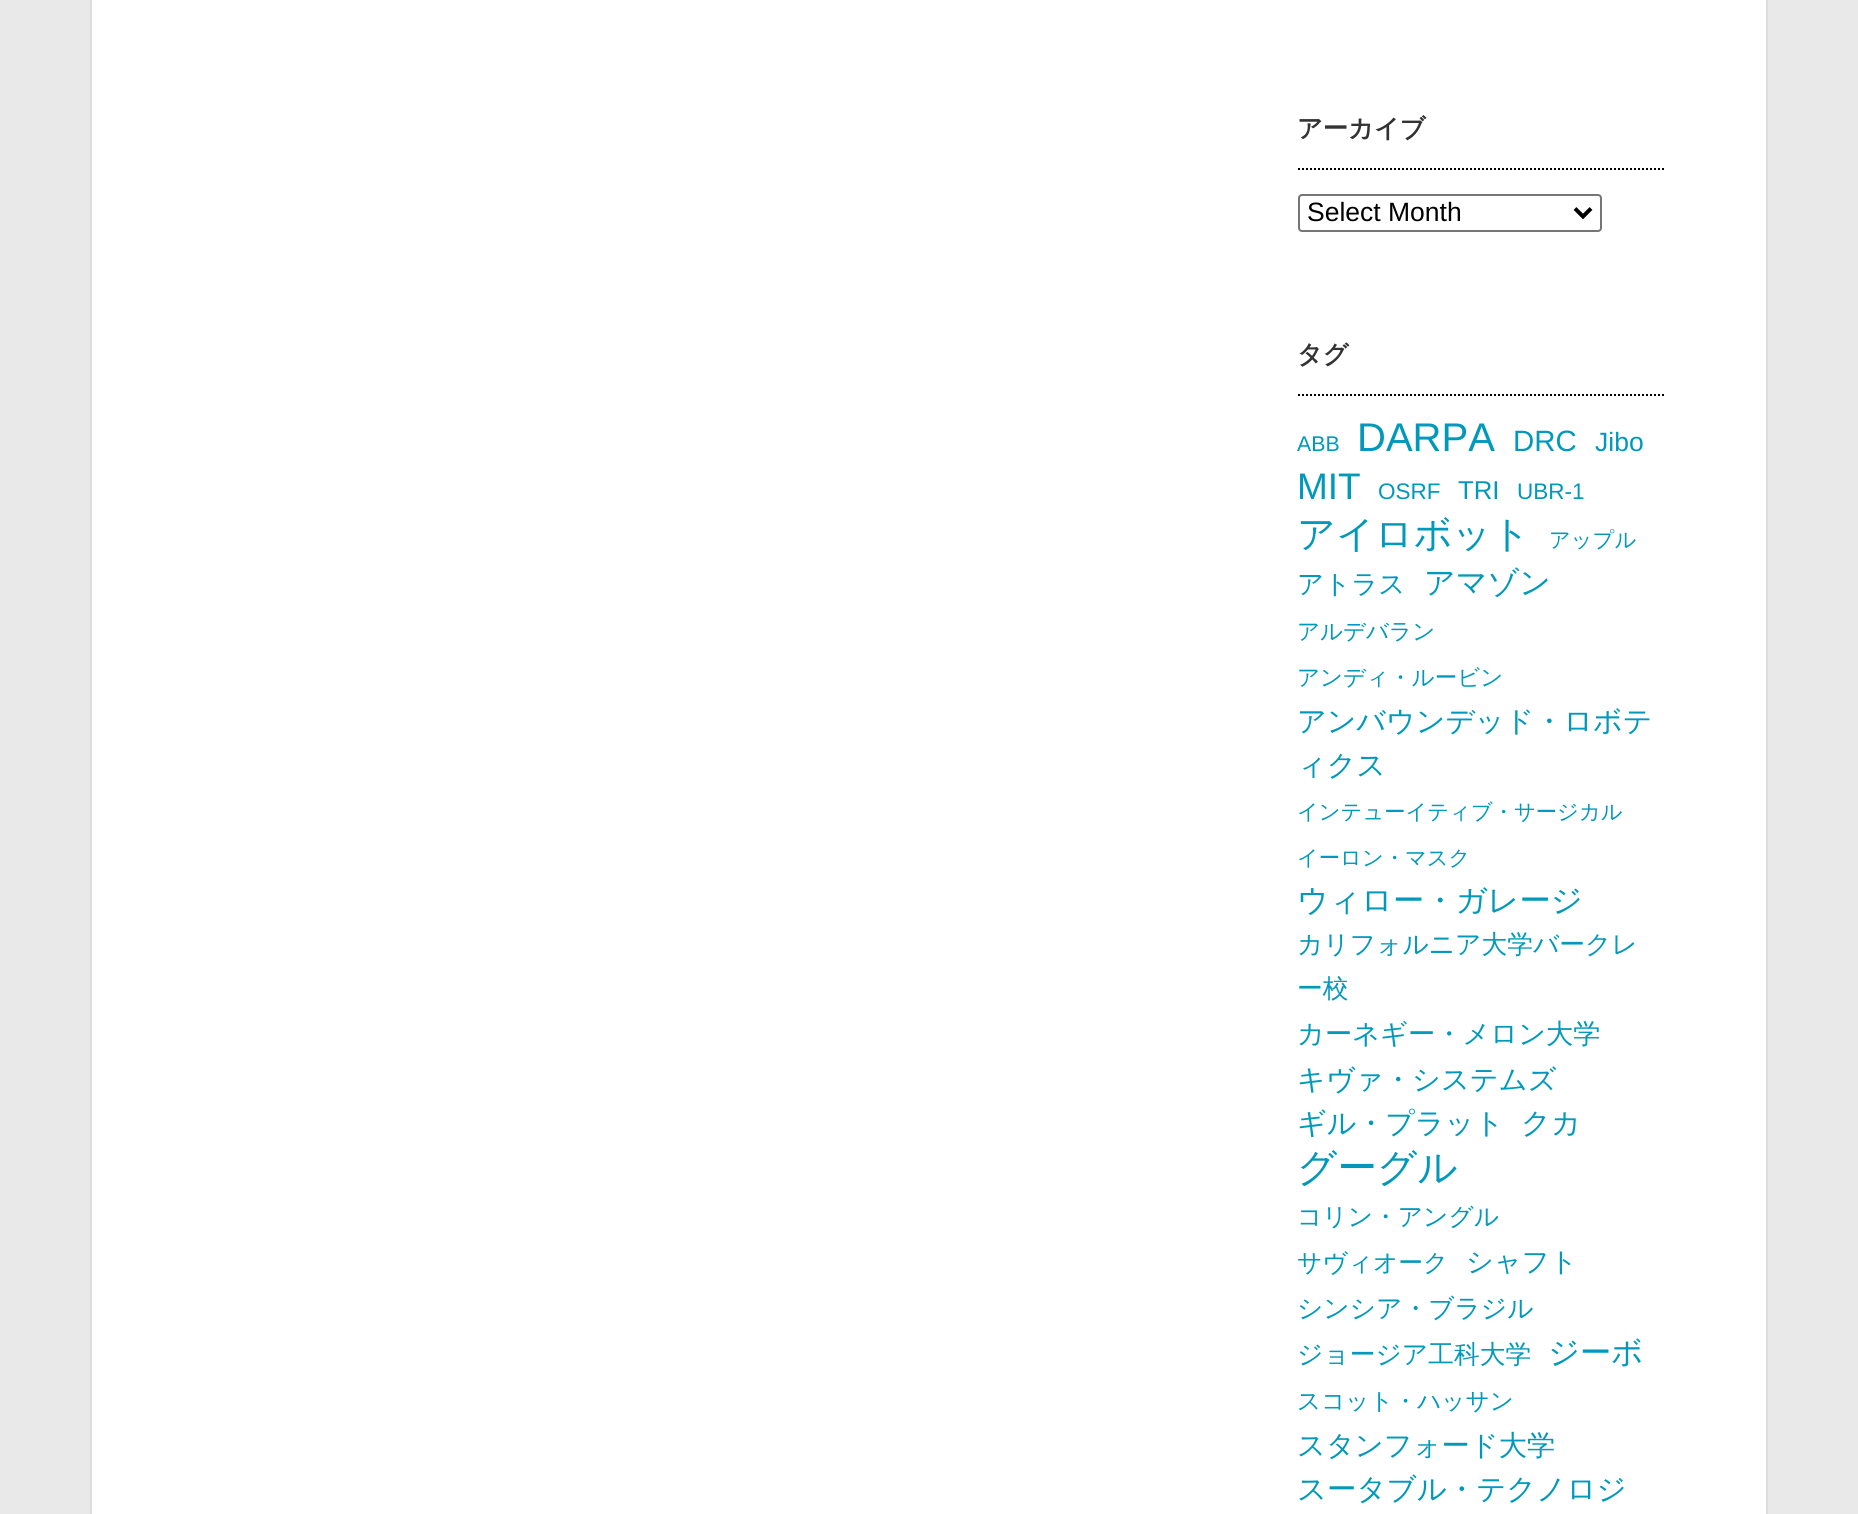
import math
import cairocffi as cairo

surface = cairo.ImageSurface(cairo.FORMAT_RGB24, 1858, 1514)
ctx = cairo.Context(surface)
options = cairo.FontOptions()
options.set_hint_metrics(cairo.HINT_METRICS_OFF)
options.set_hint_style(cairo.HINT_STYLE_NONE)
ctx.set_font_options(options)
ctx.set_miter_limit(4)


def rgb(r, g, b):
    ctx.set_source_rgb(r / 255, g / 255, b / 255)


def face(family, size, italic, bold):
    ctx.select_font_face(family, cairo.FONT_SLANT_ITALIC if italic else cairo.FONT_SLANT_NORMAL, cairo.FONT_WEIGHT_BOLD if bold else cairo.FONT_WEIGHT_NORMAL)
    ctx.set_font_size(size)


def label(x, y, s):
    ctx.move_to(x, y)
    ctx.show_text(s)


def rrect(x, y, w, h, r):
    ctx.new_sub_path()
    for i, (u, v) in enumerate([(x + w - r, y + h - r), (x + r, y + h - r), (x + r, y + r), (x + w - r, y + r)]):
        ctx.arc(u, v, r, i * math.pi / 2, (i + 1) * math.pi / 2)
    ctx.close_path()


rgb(233, 233, 233)
ctx.paint()
rgb(255, 255, 255)
ctx.rectangle(91, -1, 1676, 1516)
ctx.fill_preserve()
rgb(221, 221, 221)
ctx.stroke()
ctx.new_path()
ctx.move_to(1298, 169)
ctx.line_to(1666, 169)
rgb(0, 0, 0)
ctx.set_dash([2, 2])
ctx.stroke()
face('WenQuanYi Zen Hei', 25.25, 0, 1)
rgb(51, 51, 51)
label(1297, 137, 'アーカイブ')
rrect(1299, 195, 302, 36, 3)
rgb(118, 118, 118)
ctx.set_dash([])
ctx.stroke()
ctx.new_path()
ctx.move_to(1575, 208.5)
ctx.line_to(1583, 216.5)
ctx.line_to(1591, 208.5)
rgb(0, 0, 0)
ctx.set_line_width(4)
ctx.stroke()
face('Liberation Sans', 26.5, 0, 0)
label(1307, 221, 'Select Month')
ctx.new_path()
ctx.move_to(1298, 395)
ctx.line_to(1666, 395)
ctx.set_line_width(2)
ctx.set_dash([2, 2])
ctx.stroke()
face('WenQuanYi Zen Hei', 25.25, 0, 1)
rgb(51, 51, 51)
label(1297, 363, 'タグ')
face('Liberation Sans', 21.3, 0, 0)
rgb(0, 153, 187)
label(1297, 451, 'ABB')
face('Liberation Sans', 40, 0, 0)
label(1357, 451, 'DARPA')
face('Liberation Sans', 29.4, 0, 0)
label(1513, 451, 'DRC')
face('Liberation Sans', 26.5, 0, 0)
label(1595, 451, 'Jibo')
face('Liberation Sans', 37, 0, 0)
label(1297, 499, 'MIT')
face('Liberation Sans', 22.5, 0, 0)
label(1378, 499, 'OSRF')
face('Liberation Sans', 25.75, 0, 0)
label(1458, 499, 'TRI')
face('Liberation Sans', 22.5, 0, 0)
label(1517, 499, 'UBR-1')
face('WenQuanYi Zen Hei Medium', 38, 0, 0)
label(1297, 547, 'アイロボット')
face('WenQuanYi Zen Hei Medium', 21.3, 0, 0)
label(1549, 547, 'アップル')
face('WenQuanYi Zen Hei Medium', 26.5, 0, 0)
label(1297, 593, 'アトラス')
face('WenQuanYi Zen Hei Medium', 31, 0, 0)
label(1424, 593, 'アマゾン')
face('WenQuanYi Zen Hei Medium', 22.5, 0, 0)
label(1297, 639, 'アルデバラン')
label(1297, 685, 'アンディ・ルービン')
face('WenQuanYi Zen Hei Medium', 29, 0, 0)
label(1297, 731, 'アンバウンデッド・ロボテ')
label(1297, 775, 'ィクス')
face('WenQuanYi Zen Hei Medium', 21.3, 0, 0)
label(1297, 819, 'インテューイティブ・サージカル')
label(1297, 865, 'イーロン・マスク')
face('WenQuanYi Zen Hei Medium', 31.25, 0, 0)
label(1297, 911, 'ウィロー・ガレージ')
face('WenQuanYi Zen Hei Medium', 25.75, 0, 0)
label(1297, 953, 'カリフォルニア大学バークレ')
label(1297, 997, 'ー校')
face('WenQuanYi Zen Hei Medium', 27.25, 0, 0)
label(1297, 1043, 'カーネギー・メロン大学')
face('WenQuanYi Zen Hei Medium', 28.25, 0, 0)
label(1297, 1089, 'キヴァ・システムズ')
face('WenQuanYi Zen Hei Medium', 29, 0, 0)
label(1297, 1133, 'ギル・プラット')
face('WenQuanYi Zen Hei Medium', 29.4, 0, 0)
label(1521, 1133, 'クカ')
face('WenQuanYi Zen Hei Medium', 39.5, 0, 0)
label(1297, 1181, 'グーグル')
face('WenQuanYi Zen Hei Medium', 24.75, 0, 0)
label(1297, 1225, 'コリン・アングル')
label(1297, 1271, 'サヴィオーク')
face('WenQuanYi Zen Hei Medium', 27.25, 0, 0)
label(1466, 1271, 'シャフト')
face('WenQuanYi Zen Hei Medium', 25.75, 0, 0)
label(1297, 1317, 'シンシア・ブラジル')
label(1297, 1363, 'ジョージア工科大学')
face('WenQuanYi Zen Hei Medium', 31.25, 0, 0)
label(1548, 1363, 'ジーボ')
face('WenQuanYi Zen Hei Medium', 23.6, 0, 0)
label(1297, 1409, 'スコット・ハッサン')
face('WenQuanYi Zen Hei Medium', 28.25, 0, 0)
label(1297, 1455, 'スタンフォード大学')
face('WenQuanYi Zen Hei Medium', 29.4, 0, 0)
label(1297, 1499, 'スータブル・テクノロジ')
surface.write_to_png('render.png')
